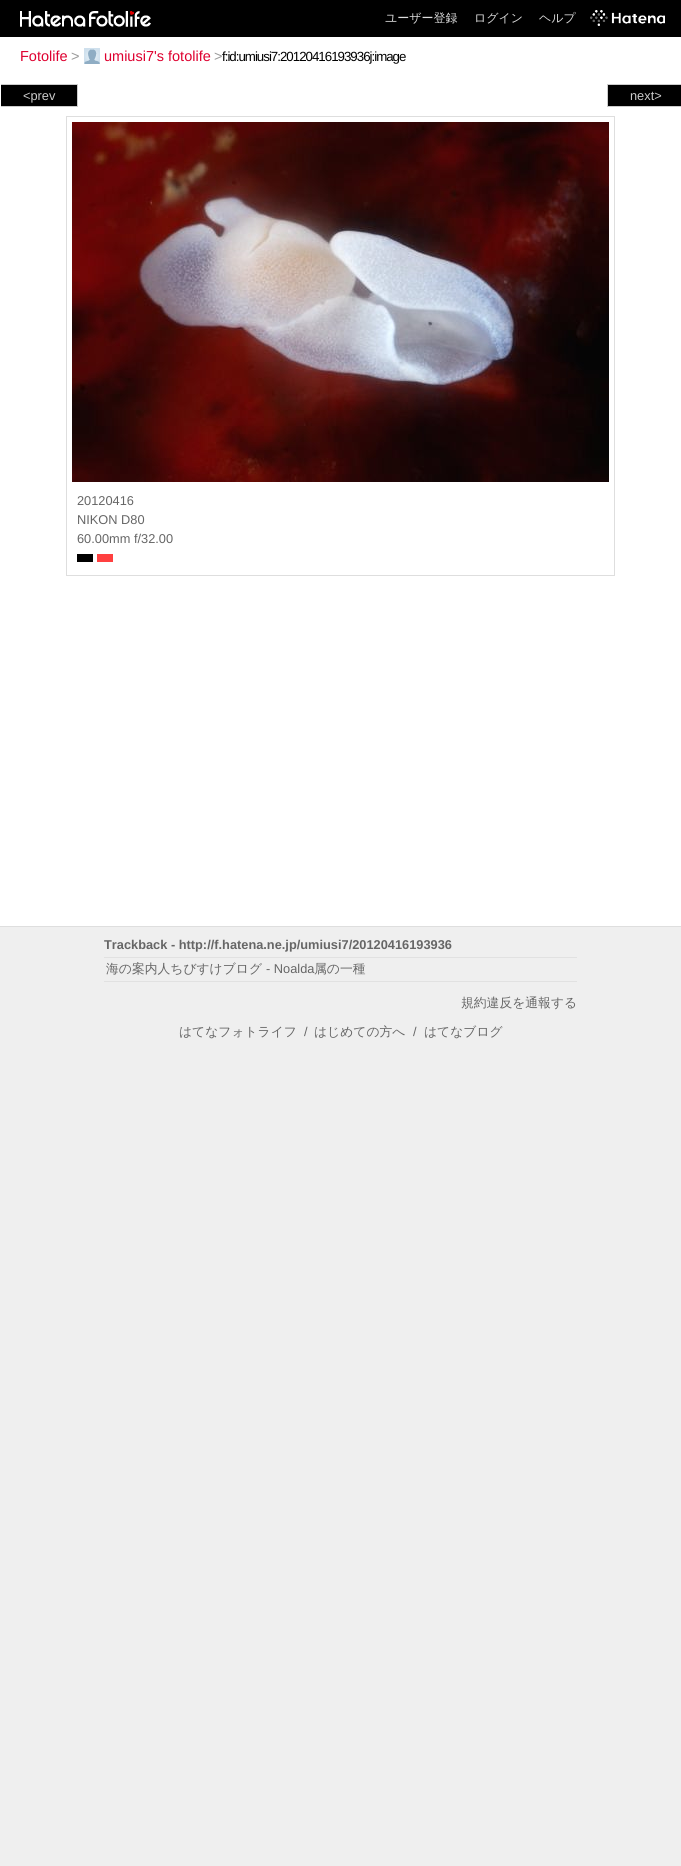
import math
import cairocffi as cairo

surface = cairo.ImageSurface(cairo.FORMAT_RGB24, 681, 1866)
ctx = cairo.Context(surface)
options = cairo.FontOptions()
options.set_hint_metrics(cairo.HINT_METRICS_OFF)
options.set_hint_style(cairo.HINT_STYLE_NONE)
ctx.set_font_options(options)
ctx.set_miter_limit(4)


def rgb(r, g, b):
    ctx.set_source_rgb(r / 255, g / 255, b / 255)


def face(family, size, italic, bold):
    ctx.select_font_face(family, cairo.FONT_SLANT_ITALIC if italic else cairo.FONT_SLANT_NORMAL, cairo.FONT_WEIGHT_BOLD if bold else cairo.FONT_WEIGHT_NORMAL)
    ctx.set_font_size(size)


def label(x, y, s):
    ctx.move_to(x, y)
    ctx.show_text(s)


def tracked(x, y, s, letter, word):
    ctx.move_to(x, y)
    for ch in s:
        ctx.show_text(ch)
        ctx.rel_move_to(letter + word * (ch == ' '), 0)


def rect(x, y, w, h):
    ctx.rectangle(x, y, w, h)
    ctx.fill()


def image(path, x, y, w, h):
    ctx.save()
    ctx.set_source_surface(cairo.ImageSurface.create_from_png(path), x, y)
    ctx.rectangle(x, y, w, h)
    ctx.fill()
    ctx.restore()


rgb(239, 239, 239)
ctx.paint()
rgb(0, 0, 0)
rect(0, 0, 681, 37)
image('image0.png', 20, 11, 66, 16)
image('image1.png', 89, 11, 62, 16)
face('WenQuanYi Zen Hei Medium', 12, 0, 0)
rgb(221, 221, 221)
label(385, 22, 'ユーザー登録')
label(474, 22, 'ログイン')
label(539, 22, 'ヘルプ')
image('image2.png', 590, 10, 75, 16)
rgb(255, 255, 255)
rect(0, 37, 681, 889)
face('Liberation Sans', 14.5, 0, 0)
rgb(222, 0, 47)
label(20, 61, 'Fotolife')
rgb(153, 153, 153)
label(71, 61, '>')
image('image3.png', 84, 48, 16, 16)
rgb(222, 0, 47)
label(104, 61, 'umiusi7\'s fotolife')
rgb(153, 153, 153)
label(214, 61, '>')
face('Liberation Sans', 13.3, 0, 0)
rgb(0, 0, 0)
tracked(222, 61, 'f:id:umiusi7:20120416193936j:image', -1, 0)
rgb(222, 222, 222)
rect(0, 926, 681, 1)
rgb(0, 0, 0)
rect(1, 85, 76, 21)
rgb(204, 204, 204)
rect(1, 84, 77, 1)
rect(77, 84, 1, 23)
rect(1, 106, 77, 1)
face('Liberation Sans', 12.8, 0, 0)
label(23, 100, '<prev')
rgb(0, 0, 0)
rect(608, 85, 73, 21)
rgb(204, 204, 204)
rect(607, 84, 74, 1)
rect(607, 106, 74, 1)
rect(607, 84, 1, 23)
label(630, 100, 'next>')
ctx.rectangle(66.5, 116.5, 548, 459)
rgb(222, 222, 222)
ctx.set_line_width(1)
ctx.stroke()
image('image4.png', 72, 122, 537, 360)
rgb(102, 102, 102)
label(77, 505, '20120416')
label(77, 524, 'NIKON D80')
label(77, 543, '60.00mm f/32.00')
rgb(0, 0, 0)
rect(77, 554, 16, 8)
rgb(255, 64, 64)
rect(97, 554, 16, 8)
face('Liberation Sans', 12.8, 0, 1)
rgb(102, 102, 102)
label(104, 949, 'Trackback - http://f.hatena.ne.jp/umiusi7/20120416193936')
rgb(225, 225, 225)
rect(104, 957, 473, 1)
rect(104, 981, 473, 1)
face('WenQuanYi Zen Hei Medium', 12.8, 0, 0)
rgb(102, 102, 102)
label(106, 973, '海の案内人ちびすけブログ')
face('Liberation Sans', 12.8, 0, 0)
label(266, 973, '- Noalda')
face('WenQuanYi Zen Hei Medium', 12.8, 0, 0)
label(314, 973, '属の一種')
label(461, 1007, '規約違反を通報する')
label(179, 1036, 'はてなフォトライフ')
face('Liberation Sans', 12.8, 0, 0)
label(304, 1036, '/')
face('WenQuanYi Zen Hei Medium', 12.8, 0, 0)
label(314, 1036, 'はじめての方へ')
face('Liberation Sans', 12.8, 0, 0)
label(413, 1036, '/')
face('WenQuanYi Zen Hei Medium', 12.8, 0, 0)
label(424, 1036, 'はてなブログ')
surface.write_to_png('render.png')
